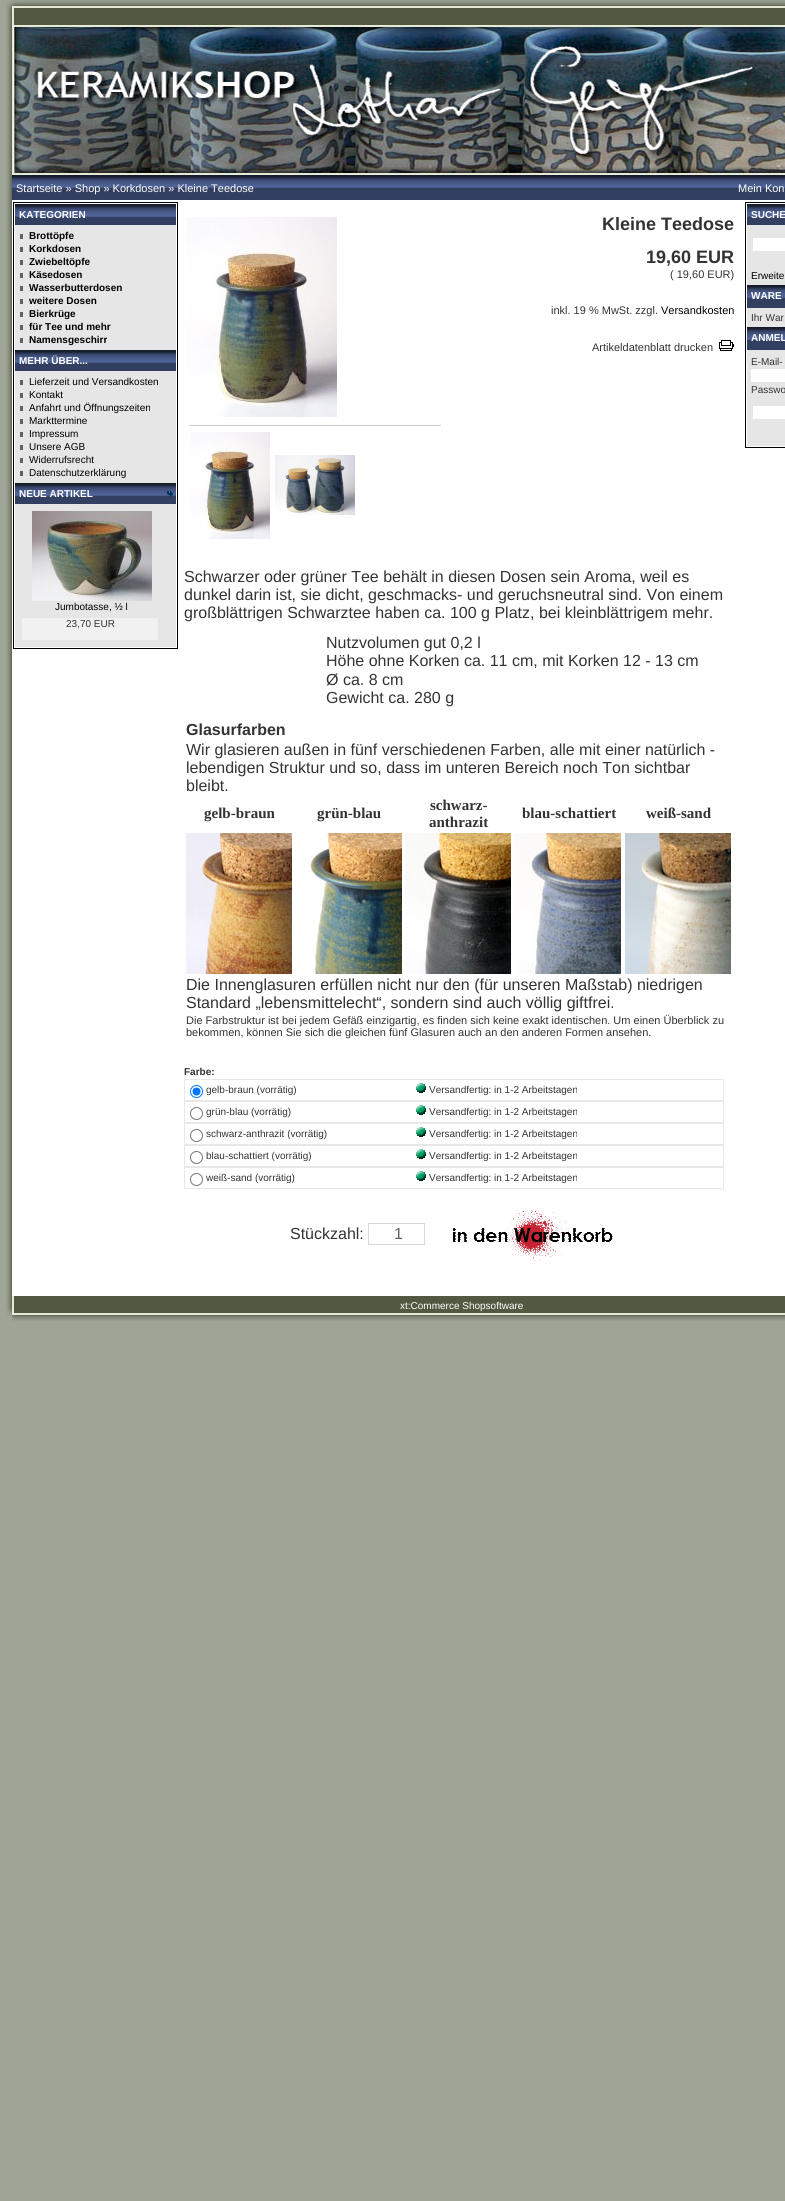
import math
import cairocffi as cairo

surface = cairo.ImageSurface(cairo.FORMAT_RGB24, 785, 2201)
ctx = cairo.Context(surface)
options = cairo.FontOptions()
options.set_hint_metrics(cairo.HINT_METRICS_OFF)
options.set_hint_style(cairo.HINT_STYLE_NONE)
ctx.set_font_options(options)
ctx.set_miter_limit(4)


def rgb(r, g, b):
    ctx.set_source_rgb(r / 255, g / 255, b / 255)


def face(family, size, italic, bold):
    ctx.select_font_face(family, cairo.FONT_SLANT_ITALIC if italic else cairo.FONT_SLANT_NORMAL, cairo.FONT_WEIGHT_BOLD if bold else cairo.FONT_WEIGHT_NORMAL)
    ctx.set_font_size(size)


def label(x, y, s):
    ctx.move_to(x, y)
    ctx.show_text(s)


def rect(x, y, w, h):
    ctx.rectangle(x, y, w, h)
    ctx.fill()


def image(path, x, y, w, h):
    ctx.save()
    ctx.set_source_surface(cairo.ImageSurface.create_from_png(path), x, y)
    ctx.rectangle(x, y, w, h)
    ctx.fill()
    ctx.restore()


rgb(158, 164, 150)
ctx.paint()
image('image0.png', 6, 0, 81, 25)
image('image1.png', 87, 0, 698, 25)
image('image2.png', 6, 25, 6, 150)
image('image3.png', 12, 25, 773, 150)
image('image4.png', 6, 175, 6, 25)
image('image5.png', 12, 175, 650, 25)
face('Liberation Sans', 11, 0, 0)
rgb(255, 255, 255)
label(16, 192, 'Startseite » Shop » Korkdosen » Kleine Teedose')
image('image6.png', 662, 175, 123, 25)
label(738, 192, 'Mein Kon')
image('image7.png', 6, 200, 6, 1096)
rect(12, 200, 773, 1096)
ctx.rectangle(13.5, 202.5, 164, 446)
rgb(0, 0, 0)
ctx.set_line_width(1)
ctx.stroke()
image('image8.png', 15, 204, 161, 21)
face('Liberation Sans', 10, 0, 1)
rgb(255, 255, 255)
label(19, 218, 'KATEGORIEN')
rgb(230, 230, 230)
rect(15, 225, 161, 125)
rgb(95, 95, 110)
rect(20, 234, 3, 5)
rgb(0, 0, 0)
label(29, 239, 'Brottöpfe')
rgb(95, 95, 110)
rect(20, 247, 3, 5)
rgb(0, 0, 0)
label(29, 252, 'Korkdosen')
rgb(95, 95, 110)
rect(20, 260, 3, 5)
rgb(0, 0, 0)
label(29, 265, 'Zwiebeltöpfe')
rgb(95, 95, 110)
rect(20, 273, 3, 5)
rgb(0, 0, 0)
label(29, 278, 'Käsedosen')
rgb(95, 95, 110)
rect(20, 286, 3, 5)
rgb(0, 0, 0)
label(29, 291, 'Wasserbutterdosen')
rgb(95, 95, 110)
rect(20, 299, 3, 5)
rgb(0, 0, 0)
label(29, 304, 'weitere Dosen')
rgb(95, 95, 110)
rect(20, 312, 3, 5)
rgb(0, 0, 0)
label(29, 317, 'Bierkrüge')
rgb(95, 95, 110)
rect(20, 325, 3, 5)
rgb(0, 0, 0)
label(29, 330, 'für Tee und mehr')
rgb(95, 95, 110)
rect(20, 338, 3, 5)
rgb(0, 0, 0)
label(29, 343, 'Namensgeschirr')
image('image8.png', 15, 350, 161, 21)
rgb(255, 255, 255)
label(19, 364, 'MEHR ÜBER...')
rgb(230, 230, 230)
rect(15, 371, 161, 112)
rgb(95, 95, 110)
rect(20, 380, 3, 5)
face('Liberation Sans', 10, 0, 0)
rgb(0, 0, 0)
label(29, 385, 'Lieferzeit und Versandkosten')
rgb(95, 95, 110)
rect(20, 393, 3, 5)
rgb(0, 0, 0)
label(29, 398, 'Kontakt')
rgb(95, 95, 110)
rect(20, 406, 3, 5)
rgb(0, 0, 0)
label(29, 411, 'Anfahrt und Öffnungszeiten')
rgb(95, 95, 110)
rect(20, 419, 3, 5)
rgb(0, 0, 0)
label(29, 424, 'Markttermine')
rgb(95, 95, 110)
rect(20, 432, 3, 5)
rgb(0, 0, 0)
label(29, 437, 'Impressum')
rgb(95, 95, 110)
rect(20, 445, 3, 5)
rgb(0, 0, 0)
label(29, 450, 'Unsere AGB')
rgb(95, 95, 110)
rect(20, 458, 3, 5)
rgb(0, 0, 0)
label(29, 463, 'Widerrufsrecht')
rgb(95, 95, 110)
rect(20, 471, 3, 5)
rgb(0, 0, 0)
label(29, 476, 'Datenschutzerklärung')
image('image8.png', 15, 483, 161, 21)
face('Liberation Sans', 10, 0, 1)
rgb(255, 255, 255)
label(19, 497, 'NEUE ARTIKEL')
image('image9.png', 167, 491, 6, 6)
rgb(230, 230, 230)
rect(15, 504, 161, 143)
image('image10.png', 32, 511, 120, 90)
face('Liberation Sans', 10, 0, 0)
rgb(0, 0, 0)
label(55, 610, 'Jumbotasse, ½ l')
rgb(241, 241, 241)
rect(22, 618, 136, 22)
rgb(51, 51, 51)
label(66, 627, '23,70 EUR')
image('image11.png', 187, 217, 150, 200)
rgb(204, 204, 204)
rect(189, 425, 252, 1)
image('image12.png', 190, 432, 80, 107)
image('image13.png', 275, 455, 80, 60)
face('Liberation Sans', 18, 0, 1)
rgb(51, 51, 51)
label(602, 230, 'Kleine Teedose')
label(646, 263, '19,60 EUR')
face('Liberation Sans', 11, 0, 0)
label(670, 278, '( 19,60 EUR)')
label(551, 314, 'inkl. 19 % MwSt. zzgl.')
rgb(0, 0, 0)
label(661, 314, 'Versandkosten')
rgb(51, 51, 51)
label(592, 351, 'Artikeldatenblatt drucken')
image('image14.png', 719, 340, 15, 11)
face('Liberation Sans', 16, 0, 0)
label(184, 582, 'Schwarzer oder grüner Tee behält in diesen Dosen sein Aroma, weil es')
label(184, 600, 'dunkel darin ist, sie dicht, geschmacks- und geruchsneutral sind. Von einem')
label(184, 618, 'großblättrigen Schwarztee haben ca. 100 g Platz, bei kleinblättrigem mehr.')
label(326, 648, 'Nutzvolumen gut 0,2 l')
label(326, 666, 'Höhe ohne Korken ca. 11 cm, mit Korken 12 - 13 cm')
label(326, 685, 'Ø ca. 8 cm')
label(326, 703, 'Gewicht ca. 280 g')
face('Liberation Sans', 16, 0, 1)
label(186, 735, 'Glasurfarben')
face('Liberation Sans', 16, 0, 0)
label(186, 755, 'Wir glasieren außen in fünf verschiedenen Farben, alle mit einer natürlich -')
label(186, 773, 'lebendigen Struktur und so, dass im unteren Bereich noch Ton sichtbar')
label(186, 791, 'bleibt.')
face('Liberation Serif', 15, 0, 1)
label(204, 818, 'gelb-braun')
label(317, 818, 'grün-blau')
label(430, 810, 'schwarz-')
label(429, 827, 'anthrazit')
label(522, 818, 'blau-schattiert')
label(646, 818, 'weiß-sand')
image('image15.png', 186, 833, 106, 141)
image('image16.png', 304, 833, 98, 141)
image('image17.png', 405, 833, 106, 141)
image('image18.png', 515, 833, 106, 141)
image('image19.png', 625, 833, 106, 141)
face('Liberation Sans', 16, 0, 0)
label(186, 990, 'Die Innenglasuren erfüllen nicht nur den (für unseren Maßstab) niedrigen')
label(186, 1008, 'Standard „lebensmittelecht“, sondern sind auch völlig giftfrei.')
face('Liberation Sans', 11, 0, 0)
label(186, 1024, 'Die Farbstruktur ist bei jedem Gefäß einzigartig, es finden sich keine exakt identischen. Um einen Überblick zu')
label(186, 1036, 'bekommen, können Sie sich die gleichen fünf Glasuren auch an den anderen Formen ansehen.')
face('Liberation Sans', 10, 0, 1)
label(184, 1075, 'Farbe:')
ctx.rectangle(184.5, 1079.5, 539, 21)
rgb(232, 232, 232)
ctx.stroke()
ctx.arc(196.5, 1091.5, 6, 0, 2 * math.pi)
rgb(0, 117, 255)
ctx.stroke()
ctx.arc(196.5, 1091.5, 4, 0, 2 * math.pi)
ctx.fill()
face('Liberation Sans', 10, 0, 0)
rgb(51, 51, 51)
label(206, 1093, 'gelb-braun (vorrätig)')
image('image20.png', 416, 1083, 10, 10)
label(429, 1093, 'Versandfertig: in 1-2 Arbeitstagen')
ctx.rectangle(184.5, 1101.5, 539, 21)
rgb(232, 232, 232)
ctx.stroke()
ctx.arc(196.5, 1113.5, 6, 0, 2 * math.pi)
rgb(118, 118, 118)
ctx.stroke()
rgb(51, 51, 51)
label(206, 1115, 'grün-blau (vorrätig)')
image('image20.png', 416, 1105, 10, 10)
label(429, 1115, 'Versandfertig: in 1-2 Arbeitstagen')
ctx.rectangle(184.5, 1123.5, 539, 21)
rgb(232, 232, 232)
ctx.stroke()
ctx.arc(196.5, 1135.5, 6, 0, 2 * math.pi)
rgb(118, 118, 118)
ctx.stroke()
rgb(51, 51, 51)
label(206, 1137, 'schwarz-anthrazit (vorrätig)')
image('image20.png', 416, 1127, 10, 10)
label(429, 1137, 'Versandfertig: in 1-2 Arbeitstagen')
ctx.rectangle(184.5, 1145.5, 539, 21)
rgb(232, 232, 232)
ctx.stroke()
ctx.arc(196.5, 1157.5, 6, 0, 2 * math.pi)
rgb(118, 118, 118)
ctx.stroke()
rgb(51, 51, 51)
label(206, 1159, 'blau-schattiert (vorrätig)')
image('image20.png', 416, 1149, 10, 10)
label(429, 1159, 'Versandfertig: in 1-2 Arbeitstagen')
ctx.rectangle(184.5, 1167.5, 539, 21)
rgb(232, 232, 232)
ctx.stroke()
ctx.arc(196.5, 1179.5, 6, 0, 2 * math.pi)
rgb(118, 118, 118)
ctx.stroke()
rgb(51, 51, 51)
label(206, 1181, 'weiß-sand (vorrätig)')
image('image20.png', 416, 1171, 10, 10)
label(429, 1181, 'Versandfertig: in 1-2 Arbeitstagen')
face('Liberation Sans', 16, 0, 0)
label(290, 1239, 'Stückzahl:')
ctx.rectangle(368.5, 1223.5, 56, 21)
rgb(216, 216, 216)
ctx.stroke()
rgb(95, 95, 110)
label(394, 1239, '1')
image('image21.png', 453, 1210, 160, 51)
ctx.rectangle(745.5, 202.5, 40, 245)
rgb(0, 0, 0)
ctx.stroke()
image('image22.png', 747, 204, 38, 21)
face('Liberation Sans', 10, 0, 1)
rgb(255, 255, 255)
label(751, 218, 'SUCHE')
rgb(230, 230, 230)
rect(747, 225, 38, 60)
rgb(255, 255, 255)
rect(753, 238, 32, 13)
face('Liberation Sans', 10, 0, 0)
rgb(0, 0, 0)
label(751, 279, 'Erweite')
image('image23.png', 747, 285, 38, 23)
face('Liberation Sans', 10, 0, 1)
rgb(255, 255, 255)
label(751, 299, 'WARE')
rgb(230, 230, 230)
rect(747, 308, 38, 19)
face('Liberation Sans', 10, 0, 0)
rgb(51, 51, 51)
label(751, 321, 'Ihr War')
image('image23.png', 747, 327, 38, 23)
face('Liberation Sans', 10, 0, 1)
rgb(255, 255, 255)
label(751, 341, 'ANMEL')
rgb(230, 230, 230)
rect(747, 350, 38, 96)
face('Liberation Sans', 10, 0, 0)
rgb(51, 51, 51)
label(751, 365, 'E-Mail-')
rgb(255, 255, 255)
rect(751, 369, 34, 13)
rgb(51, 51, 51)
label(751, 393, 'Passwo')
rgb(255, 255, 255)
rect(753, 406, 32, 13)
image('image24.png', 6, 1296, 19, 25)
image('image25.png', 25, 1296, 760, 25)
label(400, 1309, 'xt:Commerce Shopsoftware')
surface.write_to_png('render.png')
